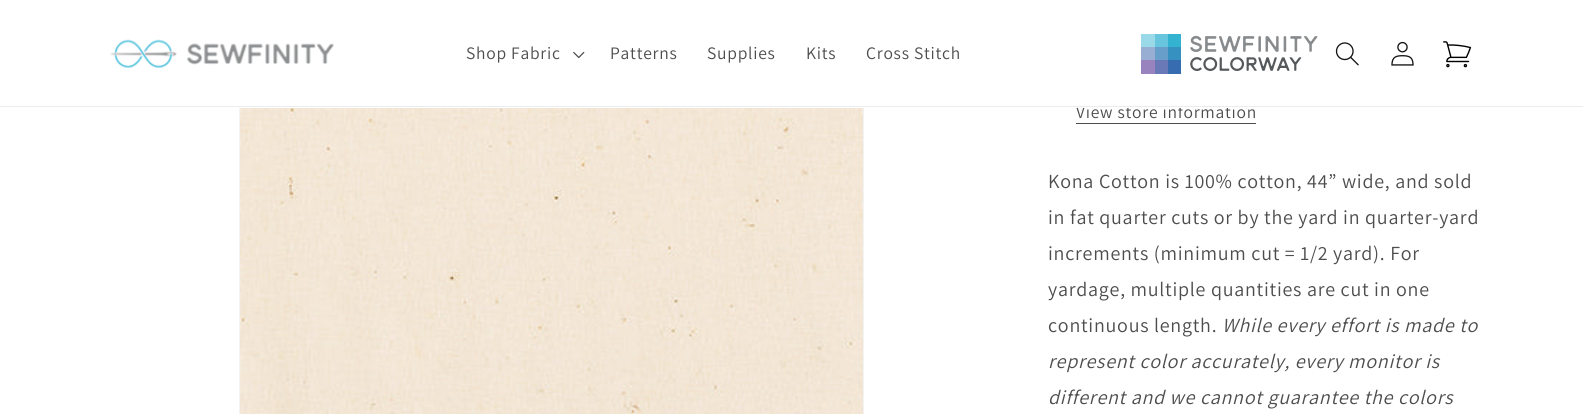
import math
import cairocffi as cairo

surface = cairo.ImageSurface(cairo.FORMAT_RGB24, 1583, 414)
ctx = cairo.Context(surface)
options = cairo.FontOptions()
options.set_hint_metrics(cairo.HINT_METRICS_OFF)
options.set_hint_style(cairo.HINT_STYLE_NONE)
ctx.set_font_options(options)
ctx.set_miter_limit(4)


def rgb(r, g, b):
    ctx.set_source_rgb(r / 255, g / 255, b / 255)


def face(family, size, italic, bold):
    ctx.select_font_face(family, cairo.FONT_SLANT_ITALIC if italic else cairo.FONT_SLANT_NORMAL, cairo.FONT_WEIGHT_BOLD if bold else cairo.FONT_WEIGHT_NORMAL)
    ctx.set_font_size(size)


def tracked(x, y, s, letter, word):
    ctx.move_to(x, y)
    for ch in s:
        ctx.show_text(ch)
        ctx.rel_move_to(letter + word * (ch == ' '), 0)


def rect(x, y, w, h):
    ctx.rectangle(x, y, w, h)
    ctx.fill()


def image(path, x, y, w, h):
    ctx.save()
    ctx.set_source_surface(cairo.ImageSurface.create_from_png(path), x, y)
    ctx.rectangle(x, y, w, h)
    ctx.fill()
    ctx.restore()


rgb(255, 255, 255)
ctx.paint()
ctx.rectangle(239.5, -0.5, 624, 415)
rgb(243, 243, 243)
ctx.set_line_width(1)
ctx.stroke()
face('Assistant', 17.5, 0, 0)
rgb(77, 77, 77)
tracked(1076, 118, 'View store information', 0.75, 0)
rgb(255, 255, 255)
rect(239, 0, 996, 108)
rgb(236, 236, 236)
rect(0, 106, 1583, 1)
image('image0.png', 110, 39, 224, 30)
rgb(77, 77, 77)
tracked(466, 59, 'Shop Fabric', 0.75, 0)
image('image1.png', 573, 51, 12, 8)
tracked(610, 59, 'Patterns', 0.75, 0)
tracked(707, 59, 'Supplies', 0.75, 0)
tracked(806, 59, 'Kits', 0.75, 0)
tracked(866, 59, 'Cross Stitch', 0.75, 0)
image('image2.png', 1141, 34, 177, 40)
image('image3.png', 1335, 42, 24, 24)
image('image4.png', 1391, 41, 23, 25)
image('image5.png', 1443, 41, 29, 27)
image('image6.png', 240, 108, 623, 306)
rect(1076, 123, 180, 1)
face('Assistant', 20, 0, 0)
tracked(1048, 188, 'Kona Cotton is 100% cotton, 44” wide, and sold', 0.75, 0)
tracked(1048, 224, 'in fat quarter cuts or by the yard in quarter-yard', 0.75, 0)
tracked(1048, 260, 'increments (minimum cut = 1/2 yard). For', 0.75, 0)
tracked(1048, 296, 'yardage, multiple quantities are cut in one', 0.75, 0)
tracked(1048, 332, 'continuous length.', 0.75, 0)
face('Assistant', 20, 1, 0)
tracked(1222, 332, 'While every effort is made to', 0.75, 0)
tracked(1048, 368, 'represent color accurately, every monitor is', 0.75, 0)
tracked(1048, 404, 'different and we cannot guarantee the colors', 0.75, 0)
surface.write_to_png('render.png')
